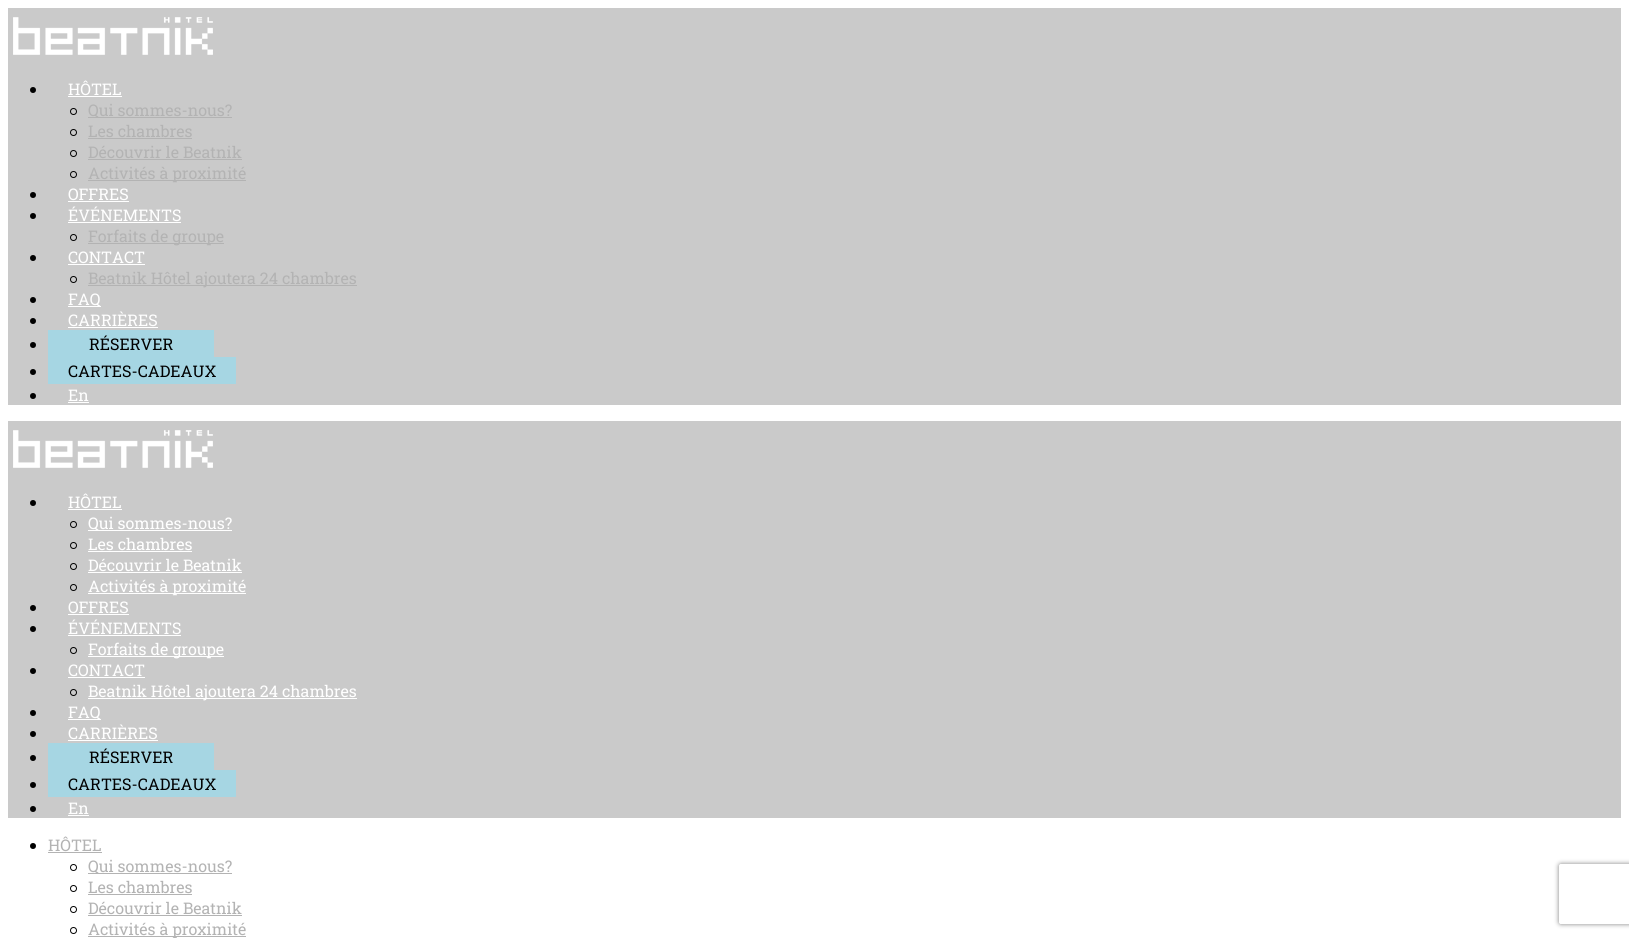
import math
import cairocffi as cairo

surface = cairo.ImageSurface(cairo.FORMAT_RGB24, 1629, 938)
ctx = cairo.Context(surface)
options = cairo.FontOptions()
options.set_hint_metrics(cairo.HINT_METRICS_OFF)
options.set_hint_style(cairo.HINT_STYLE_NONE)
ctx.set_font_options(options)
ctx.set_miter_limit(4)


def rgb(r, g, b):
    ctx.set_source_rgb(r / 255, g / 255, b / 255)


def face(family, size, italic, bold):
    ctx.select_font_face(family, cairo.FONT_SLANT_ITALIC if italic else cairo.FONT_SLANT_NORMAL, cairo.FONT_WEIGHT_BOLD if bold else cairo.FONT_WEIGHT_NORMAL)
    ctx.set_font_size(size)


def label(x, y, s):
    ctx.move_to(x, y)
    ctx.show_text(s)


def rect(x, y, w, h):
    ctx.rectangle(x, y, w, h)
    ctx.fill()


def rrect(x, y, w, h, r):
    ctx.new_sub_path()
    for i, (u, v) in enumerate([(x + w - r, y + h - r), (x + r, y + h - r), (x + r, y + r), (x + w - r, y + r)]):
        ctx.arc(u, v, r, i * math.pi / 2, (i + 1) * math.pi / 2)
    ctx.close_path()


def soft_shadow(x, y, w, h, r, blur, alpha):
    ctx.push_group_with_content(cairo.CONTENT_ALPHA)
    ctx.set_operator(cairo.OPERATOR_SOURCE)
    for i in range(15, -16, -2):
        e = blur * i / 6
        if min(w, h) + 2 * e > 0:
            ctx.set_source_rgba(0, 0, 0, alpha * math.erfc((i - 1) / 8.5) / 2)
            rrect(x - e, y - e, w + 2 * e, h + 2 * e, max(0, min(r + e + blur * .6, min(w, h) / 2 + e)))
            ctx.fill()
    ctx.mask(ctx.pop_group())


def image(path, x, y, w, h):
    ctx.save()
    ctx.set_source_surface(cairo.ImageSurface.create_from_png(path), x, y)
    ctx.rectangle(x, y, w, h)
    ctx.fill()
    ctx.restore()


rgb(255, 255, 255)
ctx.paint()
rgb(202, 202, 202)
rect(8, 8, 1613, 397)
image('image0.png', 13, 17, 200, 38)
rgb(0, 0, 0)
ctx.arc(33, 90, 3, 0, 2 * math.pi)
ctx.fill()
face('Roboto Slab', 16, 0, 0)
rgb(255, 255, 255)
label(68, 95, 'HÔTEL')
rect(68, 96, 54, 1)
ctx.new_path()
ctx.arc(73.5, 111.5, 3, 0, 2 * math.pi)
rgb(0, 0, 0)
ctx.set_line_width(1)
ctx.stroke()
rgb(179, 179, 179)
rect(88, 117, 144, 1)
label(88, 116, 'Qui sommes-nous?')
ctx.new_path()
ctx.arc(73.5, 132.5, 3, 0, 2 * math.pi)
rgb(0, 0, 0)
ctx.stroke()
rgb(179, 179, 179)
label(88, 137, 'Les chambres')
rect(88, 138, 104, 1)
ctx.new_path()
ctx.arc(73.5, 153.5, 3, 0, 2 * math.pi)
rgb(0, 0, 0)
ctx.stroke()
rgb(179, 179, 179)
label(88, 158, 'Découvrir le Beatnik')
rect(88, 159, 154, 1)
ctx.new_path()
ctx.arc(73.5, 174.5, 3, 0, 2 * math.pi)
rgb(0, 0, 0)
ctx.stroke()
rgb(179, 179, 179)
rect(88, 180, 158, 1)
label(88, 179, 'Activités à proximité')
rgb(0, 0, 0)
ctx.new_path()
ctx.arc(33, 195, 3, 0, 2 * math.pi)
ctx.fill()
rgb(255, 255, 255)
label(68, 200, 'OFFRES')
rect(68, 201, 61, 1)
rgb(0, 0, 0)
ctx.new_path()
ctx.arc(33, 216, 3, 0, 2 * math.pi)
ctx.fill()
rgb(255, 255, 255)
label(68, 221, 'ÉVÉNEMENTS')
rect(68, 222, 113, 1)
ctx.new_path()
ctx.arc(73.5, 237.5, 3, 0, 2 * math.pi)
rgb(0, 0, 0)
ctx.stroke()
rgb(179, 179, 179)
rect(88, 243, 136, 1)
label(88, 242, 'Forfaits de groupe')
rgb(0, 0, 0)
ctx.new_path()
ctx.arc(33, 258, 3, 0, 2 * math.pi)
ctx.fill()
rgb(255, 255, 255)
label(68, 263, 'CONTACT')
rect(68, 264, 77, 1)
ctx.new_path()
ctx.arc(73.5, 279.5, 3, 0, 2 * math.pi)
rgb(0, 0, 0)
ctx.stroke()
rgb(179, 179, 179)
rect(88, 285, 269, 1)
label(88, 284, 'Beatnik Hôtel ajoutera 24 chambres')
rgb(0, 0, 0)
ctx.new_path()
ctx.arc(33, 300, 3, 0, 2 * math.pi)
ctx.fill()
rgb(255, 255, 255)
rect(68, 306, 33, 1)
label(68, 305, 'FAQ')
rgb(0, 0, 0)
ctx.new_path()
ctx.arc(33, 321, 3, 0, 2 * math.pi)
ctx.fill()
rgb(255, 255, 255)
label(68, 326, 'CARRIÈRES')
rect(68, 327, 90, 1)
rgb(0, 0, 0)
ctx.new_path()
ctx.arc(33, 345, 3, 0, 2 * math.pi)
ctx.fill()
rgb(166, 214, 227)
rect(48, 330, 166, 27)
rgb(0, 0, 0)
label(89, 350, 'RÉSERVER')
ctx.new_path()
ctx.arc(33, 372, 3, 0, 2 * math.pi)
ctx.fill()
rgb(166, 214, 227)
rect(48, 357, 188, 27)
rgb(0, 0, 0)
label(68, 377, 'CARTES-CADEAUX')
ctx.new_path()
ctx.arc(33, 396, 3, 0, 2 * math.pi)
ctx.fill()
rgb(255, 255, 255)
label(68, 401, 'En')
rect(68, 402, 21, 1)
rgb(202, 202, 202)
rect(8, 421, 1613, 397)
image('image0.png', 13, 430, 200, 38)
rgb(0, 0, 0)
ctx.arc(33, 503, 3, 0, 2 * math.pi)
ctx.fill()
rgb(255, 255, 255)
label(68, 508, 'HÔTEL')
rect(68, 509, 54, 1)
ctx.new_path()
ctx.arc(73.5, 524.5, 3, 0, 2 * math.pi)
rgb(0, 0, 0)
ctx.stroke()
rgb(255, 255, 255)
rect(88, 530, 144, 1)
label(88, 529, 'Qui sommes-nous?')
ctx.new_path()
ctx.arc(73.5, 545.5, 3, 0, 2 * math.pi)
rgb(0, 0, 0)
ctx.stroke()
rgb(255, 255, 255)
label(88, 550, 'Les chambres')
rect(88, 551, 104, 1)
ctx.new_path()
ctx.arc(73.5, 566.5, 3, 0, 2 * math.pi)
rgb(0, 0, 0)
ctx.stroke()
rgb(255, 255, 255)
label(88, 571, 'Découvrir le Beatnik')
rect(88, 572, 154, 1)
ctx.new_path()
ctx.arc(73.5, 587.5, 3, 0, 2 * math.pi)
rgb(0, 0, 0)
ctx.stroke()
rgb(255, 255, 255)
rect(88, 593, 158, 1)
label(88, 592, 'Activités à proximité')
rgb(0, 0, 0)
ctx.new_path()
ctx.arc(33, 608, 3, 0, 2 * math.pi)
ctx.fill()
rgb(255, 255, 255)
label(68, 613, 'OFFRES')
rect(68, 614, 61, 1)
rgb(0, 0, 0)
ctx.new_path()
ctx.arc(33, 629, 3, 0, 2 * math.pi)
ctx.fill()
rgb(255, 255, 255)
label(68, 634, 'ÉVÉNEMENTS')
rect(68, 635, 113, 1)
ctx.new_path()
ctx.arc(73.5, 650.5, 3, 0, 2 * math.pi)
rgb(0, 0, 0)
ctx.stroke()
rgb(255, 255, 255)
rect(88, 656, 136, 1)
label(88, 655, 'Forfaits de groupe')
rgb(0, 0, 0)
ctx.new_path()
ctx.arc(33, 671, 3, 0, 2 * math.pi)
ctx.fill()
rgb(255, 255, 255)
label(68, 676, 'CONTACT')
rect(68, 677, 77, 1)
ctx.new_path()
ctx.arc(73.5, 692.5, 3, 0, 2 * math.pi)
rgb(0, 0, 0)
ctx.stroke()
rgb(255, 255, 255)
rect(88, 698, 269, 1)
label(88, 697, 'Beatnik Hôtel ajoutera 24 chambres')
rgb(0, 0, 0)
ctx.new_path()
ctx.arc(33, 713, 3, 0, 2 * math.pi)
ctx.fill()
rgb(255, 255, 255)
rect(68, 719, 33, 1)
label(68, 718, 'FAQ')
rgb(0, 0, 0)
ctx.new_path()
ctx.arc(33, 734, 3, 0, 2 * math.pi)
ctx.fill()
rgb(255, 255, 255)
label(68, 739, 'CARRIÈRES')
rect(68, 740, 90, 1)
rgb(0, 0, 0)
ctx.new_path()
ctx.arc(33, 758, 3, 0, 2 * math.pi)
ctx.fill()
rgb(166, 214, 227)
rect(48, 743, 166, 27)
rgb(0, 0, 0)
label(89, 763, 'RÉSERVER')
ctx.new_path()
ctx.arc(33, 785, 3, 0, 2 * math.pi)
ctx.fill()
rgb(166, 214, 227)
rect(48, 770, 188, 27)
rgb(0, 0, 0)
label(68, 790, 'CARTES-CADEAUX')
ctx.new_path()
ctx.arc(33, 809, 3, 0, 2 * math.pi)
ctx.fill()
rgb(255, 255, 255)
label(68, 814, 'En')
rect(68, 815, 21, 1)
rgb(0, 0, 0)
ctx.new_path()
ctx.arc(33, 846, 3, 0, 2 * math.pi)
ctx.fill()
rgb(179, 179, 179)
label(48, 851, 'HÔTEL')
rect(48, 852, 54, 1)
ctx.new_path()
ctx.arc(73.5, 867.5, 3, 0, 2 * math.pi)
rgb(0, 0, 0)
ctx.stroke()
rgb(179, 179, 179)
rect(88, 873, 144, 1)
label(88, 872, 'Qui sommes-nous?')
ctx.new_path()
ctx.arc(73.5, 888.5, 3, 0, 2 * math.pi)
rgb(0, 0, 0)
ctx.stroke()
rgb(179, 179, 179)
label(88, 893, 'Les chambres')
rect(88, 894, 104, 1)
ctx.new_path()
ctx.arc(73.5, 909.5, 3, 0, 2 * math.pi)
rgb(0, 0, 0)
ctx.stroke()
rgb(179, 179, 179)
label(88, 914, 'Découvrir le Beatnik')
rect(88, 915, 154, 1)
ctx.new_path()
ctx.arc(73.5, 930.5, 3, 0, 2 * math.pi)
rgb(0, 0, 0)
ctx.stroke()
rgb(179, 179, 179)
rect(88, 936, 158, 1)
label(88, 935, 'Activités à proximité')
ctx.save()
ctx.set_fill_rule(cairo.FILL_RULE_EVEN_ODD)
ctx.new_path()
ctx.move_to(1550, 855)
ctx.line_to(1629, 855)
ctx.line_to(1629, 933)
ctx.line_to(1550, 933)
ctx.close_path()
ctx.move_to(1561, 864)
ctx.line_to(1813, 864)
ctx.curve_to(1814, 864, 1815, 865, 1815, 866)
ctx.line_to(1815, 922)
ctx.curve_to(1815, 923, 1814, 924, 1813, 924)
ctx.line_to(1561, 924)
ctx.curve_to(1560, 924, 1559, 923, 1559, 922)
ctx.line_to(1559, 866)
ctx.curve_to(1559, 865, 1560, 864, 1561, 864)
ctx.close_path()
ctx.clip()
rgb(128, 128, 128)
soft_shadow(1559, 864, 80, 60, 2, 2.5, 1)
ctx.restore()
surface.write_to_png('render.png')
